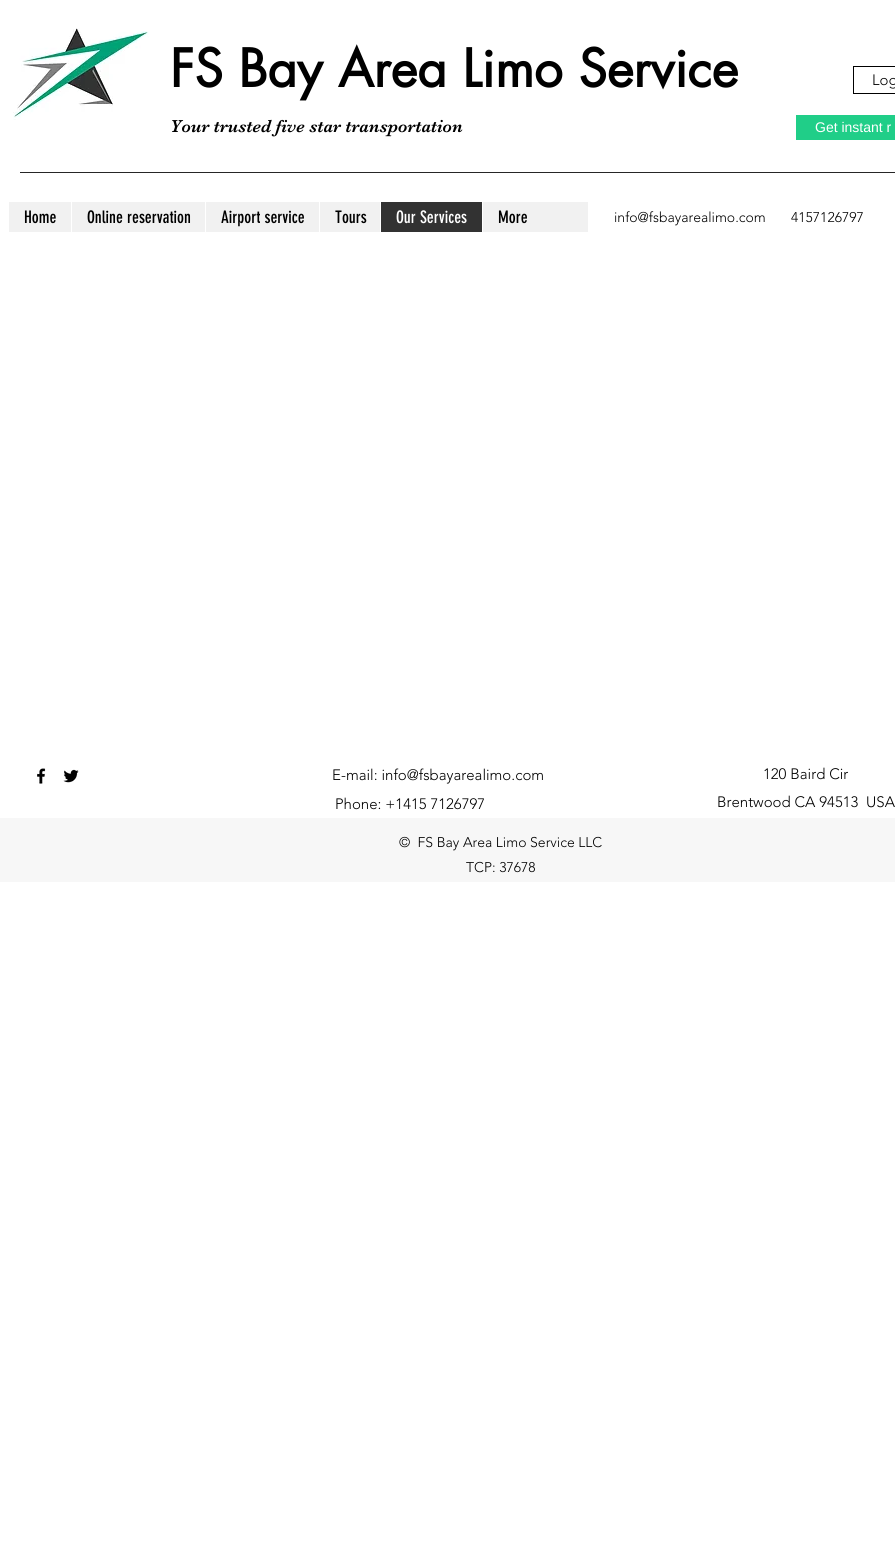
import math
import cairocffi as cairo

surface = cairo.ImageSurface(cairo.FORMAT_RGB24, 895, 1565)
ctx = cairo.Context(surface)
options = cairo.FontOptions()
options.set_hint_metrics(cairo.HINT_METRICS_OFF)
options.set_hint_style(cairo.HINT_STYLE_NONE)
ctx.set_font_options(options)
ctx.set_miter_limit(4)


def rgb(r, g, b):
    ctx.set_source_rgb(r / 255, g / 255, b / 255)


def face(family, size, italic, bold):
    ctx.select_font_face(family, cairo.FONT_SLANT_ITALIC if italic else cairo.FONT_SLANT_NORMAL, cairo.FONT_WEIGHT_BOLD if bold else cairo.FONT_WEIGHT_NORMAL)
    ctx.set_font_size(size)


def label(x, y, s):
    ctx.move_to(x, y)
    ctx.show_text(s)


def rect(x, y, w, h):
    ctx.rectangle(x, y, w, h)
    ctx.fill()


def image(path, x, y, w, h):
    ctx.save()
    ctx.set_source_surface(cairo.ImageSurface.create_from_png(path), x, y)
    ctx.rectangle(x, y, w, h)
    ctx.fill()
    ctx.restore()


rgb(255, 255, 255)
ctx.paint()
image('image0.png', 13, 28, 136, 92)
face('futura', 51, 0, 1)
rgb(0, 0, 0)
label(170, 87, 'FS Bay Area Limo Service')
ctx.rectangle(853.5, 66.5, 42, 27)
ctx.set_line_width(1)
ctx.stroke()
face('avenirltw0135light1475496 Light', 15, 0, 0)
label(872, 85, 'Log')
face('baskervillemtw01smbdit', 18, 0, 0)
label(170, 132, 'Your trusted five star transportation')
rgb(32, 206, 136)
rect(796, 115, 99, 25)
face('Liberation Sans', 14, 0, 0)
rgb(255, 255, 255)
label(815, 132, 'Get instant r')
rgb(38, 38, 38)
rect(20, 172, 875, 1)
rgb(241, 241, 241)
rect(9, 202, 579, 30)
face('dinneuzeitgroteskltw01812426', 17, 0, 0)
rgb(0, 0, 0)
label(24, 223, 'Home')
rgb(255, 255, 255)
rect(71, 202, 1, 30)
rgb(0, 0, 0)
label(87, 223, 'Online reservation')
rgb(255, 255, 255)
rect(205, 202, 1, 30)
rgb(0, 0, 0)
label(221, 223, 'Airport service')
rgb(255, 255, 255)
rect(319, 202, 1, 30)
rgb(0, 0, 0)
label(335, 223, 'Tours')
rgb(50, 50, 50)
rect(381, 202, 101, 30)
rgb(255, 255, 255)
rect(380, 202, 1, 30)
label(396, 223, 'Our Services')
rect(482, 202, 1, 30)
rgb(0, 0, 0)
label(498, 223, 'More')
face('avenirltw0135light1475496 Light', 14, 0, 0)
label(614, 222, 'info@fsbayarealimo.com')
label(791, 222, '4157126797')
image('image1.png', 37, 768, 9, 16)
image('image2.png', 63, 769, 16, 14)
face('avenirltw0135light1475496 Light', 15, 0, 0)
label(332, 780, 'E-mail: info@fsbayarealimo.com')
label(763, 779, '120 Baird Cir')
label(717, 807, 'Brentwood CA 94513  USA')
label(335, 809, 'Phone: +1415 7126797')
rgb(247, 247, 247)
rect(0, 818, 895, 64)
face('avenirltw0135light1475496 Light', 14, 0, 0)
rgb(0, 0, 0)
label(399, 847, '©  FS Bay Area Limo Service LLC')
label(466, 872, 'TCP: 37678')
surface.write_to_png('render.png')
